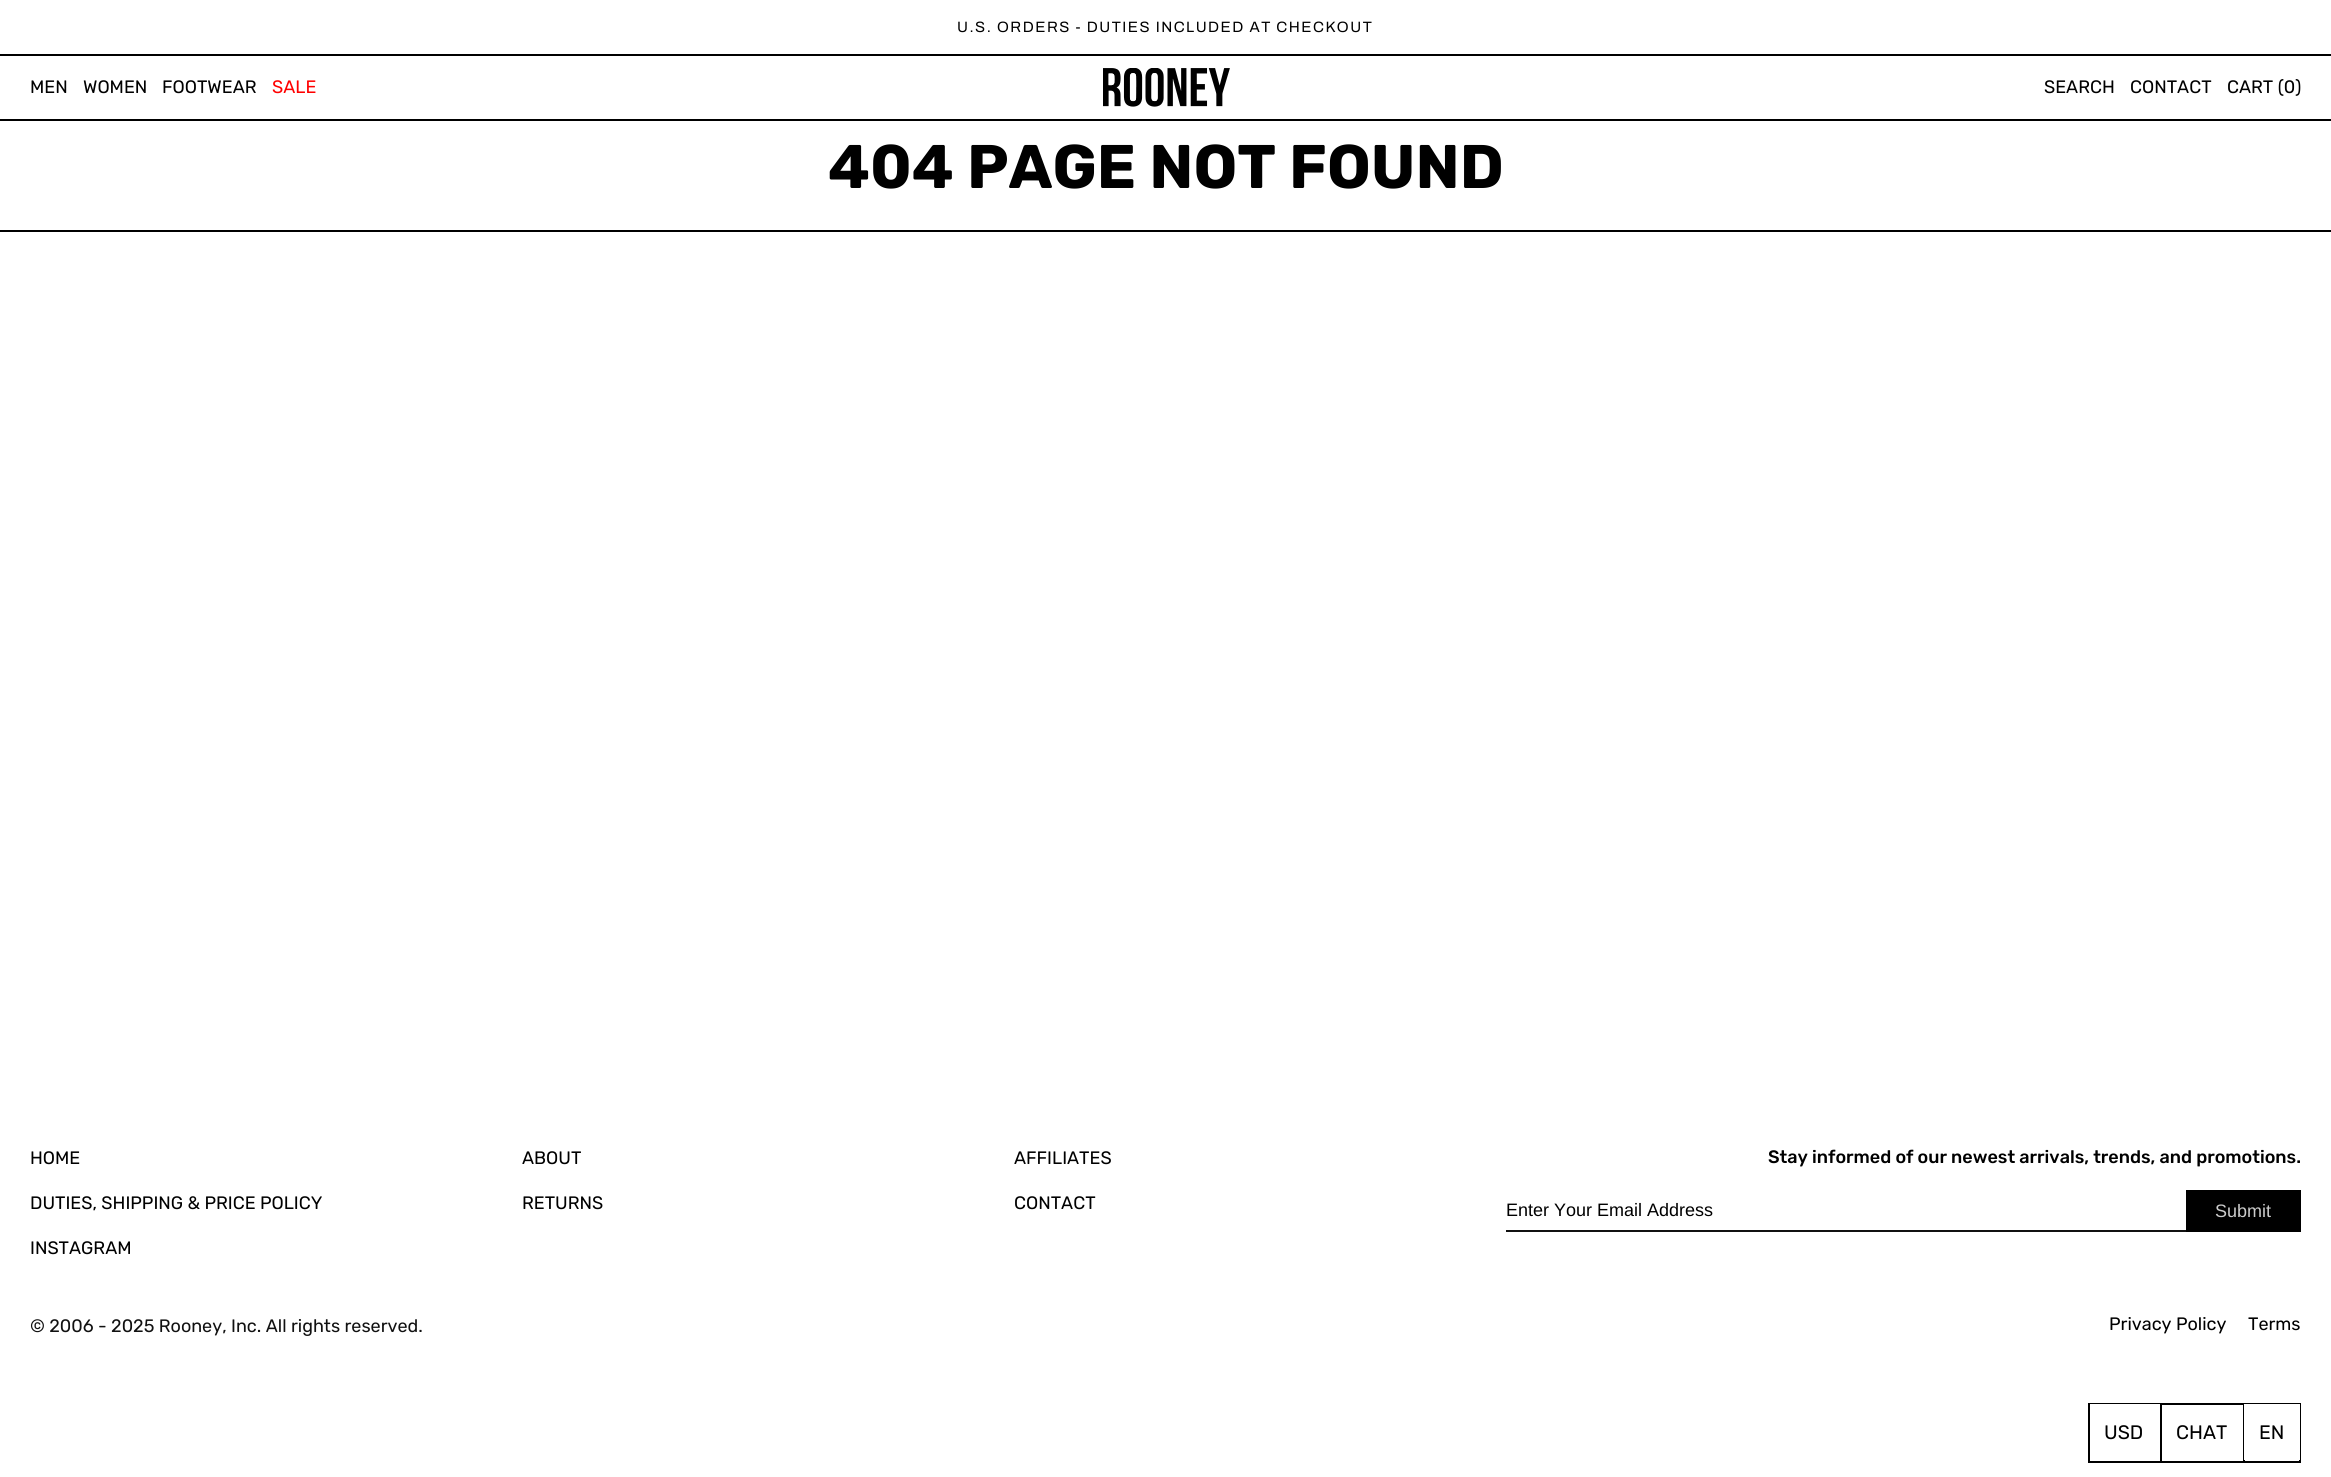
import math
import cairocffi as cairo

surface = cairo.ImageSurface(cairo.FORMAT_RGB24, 2331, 1477)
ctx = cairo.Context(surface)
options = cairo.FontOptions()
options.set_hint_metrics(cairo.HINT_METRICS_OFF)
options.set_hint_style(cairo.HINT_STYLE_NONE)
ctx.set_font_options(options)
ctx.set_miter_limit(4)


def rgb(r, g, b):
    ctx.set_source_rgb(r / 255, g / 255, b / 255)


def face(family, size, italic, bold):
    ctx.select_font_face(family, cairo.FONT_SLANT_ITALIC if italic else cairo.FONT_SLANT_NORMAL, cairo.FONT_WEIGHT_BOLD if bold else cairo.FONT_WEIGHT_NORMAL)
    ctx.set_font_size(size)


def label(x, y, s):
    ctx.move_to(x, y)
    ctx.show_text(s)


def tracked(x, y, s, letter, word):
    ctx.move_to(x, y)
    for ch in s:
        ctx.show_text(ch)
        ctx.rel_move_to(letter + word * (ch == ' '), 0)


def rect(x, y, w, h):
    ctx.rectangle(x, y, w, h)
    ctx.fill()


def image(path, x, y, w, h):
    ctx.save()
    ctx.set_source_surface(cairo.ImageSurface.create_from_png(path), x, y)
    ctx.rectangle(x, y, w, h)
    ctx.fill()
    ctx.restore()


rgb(255, 255, 255)
ctx.paint()
rgb(0, 0, 0)
rect(0, 54, 2331, 2)
face('Archivo', 15, 0, 0)
tracked(957, 32, 'U.S. ORDERS - DUTIES INCLUDED AT CHECKOUT', 1.5, 0)
rect(0, 119, 2331, 2)
face('Rubik', 18, 0, 0)
label(30, 93, 'MEN')
label(83, 93, 'WOMEN')
label(162, 93, 'FOOTWEAR')
rgb(255, 0, 0)
label(272, 93, 'SALE')
image('image0.png', 1103, 68, 127, 39)
rgb(0, 0, 0)
label(2044, 93, 'SEARCH')
label(2130, 93, 'CONTACT')
label(2227, 93, 'CART (0)')
rect(0, 230, 2331, 2)
face('Rubik', 61.5, 0, 1)
label(828, 188, '404 PAGE NOT FOUND')
face('Rubik', 18, 0, 0)
label(30, 1164, 'HOME')
label(522, 1164, 'ABOUT')
label(1014, 1164, 'AFFILIATES')
label(30, 1209, 'DUTIES, SHIPPING & PRICE POLICY')
label(522, 1209, 'RETURNS')
label(1014, 1209, 'CONTACT')
label(30, 1254, 'INSTAGRAM')
face('Rubik Medium', 18, 0, 0)
label(1768, 1163, 'Stay informed of our newest arrivals, trends, and promotions.')
rgb(17, 17, 17)
rect(1506, 1230, 680, 2)
face('Liberation Sans', 18, 0, 0)
rgb(0, 0, 0)
label(1506, 1216, 'Enter Your Email Address')
rect(2186, 1190, 115, 42)
rgb(204, 204, 204)
label(2215, 1217, 'Submit')
face('Rubik', 18, 0, 0)
rgb(17, 17, 17)
label(30, 1332, '© 2006 - 2025 Rooney, Inc. All rights reserved.')
rgb(0, 0, 0)
label(2109, 1330, 'Privacy Policy')
label(2248, 1330, 'Terms')
ctx.rectangle(2089, 1404, 211, 58)
ctx.stroke()
rect(2160, 1404, 2, 57)
rgb(255, 255, 255)
rect(2090, 1404, 70, 1)
face('Rubik', 19.5, 0, 0)
rgb(0, 0, 0)
label(2104, 1439, 'USD')
rect(2243, 1404, 2, 57)
label(2176, 1439, 'CHAT')
rgb(255, 255, 255)
rect(2244, 1404, 56, 56)
rgb(0, 0, 0)
label(2259, 1439, 'EN')
surface.write_to_png('render.png')
